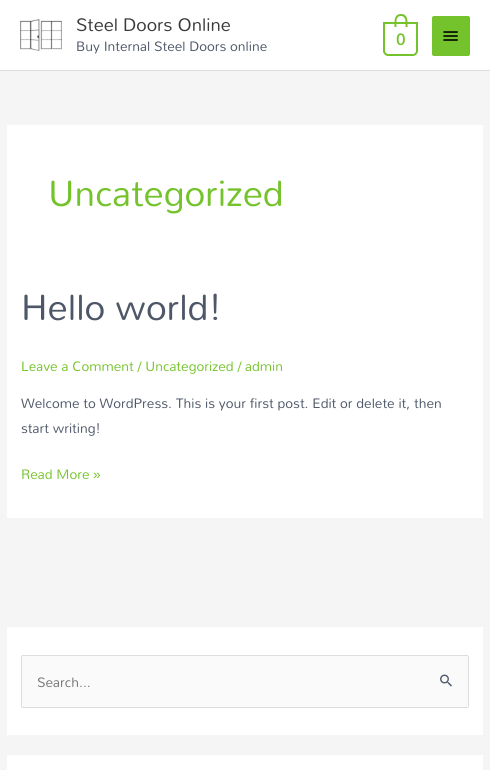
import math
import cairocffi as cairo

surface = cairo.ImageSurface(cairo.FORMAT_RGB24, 490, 770)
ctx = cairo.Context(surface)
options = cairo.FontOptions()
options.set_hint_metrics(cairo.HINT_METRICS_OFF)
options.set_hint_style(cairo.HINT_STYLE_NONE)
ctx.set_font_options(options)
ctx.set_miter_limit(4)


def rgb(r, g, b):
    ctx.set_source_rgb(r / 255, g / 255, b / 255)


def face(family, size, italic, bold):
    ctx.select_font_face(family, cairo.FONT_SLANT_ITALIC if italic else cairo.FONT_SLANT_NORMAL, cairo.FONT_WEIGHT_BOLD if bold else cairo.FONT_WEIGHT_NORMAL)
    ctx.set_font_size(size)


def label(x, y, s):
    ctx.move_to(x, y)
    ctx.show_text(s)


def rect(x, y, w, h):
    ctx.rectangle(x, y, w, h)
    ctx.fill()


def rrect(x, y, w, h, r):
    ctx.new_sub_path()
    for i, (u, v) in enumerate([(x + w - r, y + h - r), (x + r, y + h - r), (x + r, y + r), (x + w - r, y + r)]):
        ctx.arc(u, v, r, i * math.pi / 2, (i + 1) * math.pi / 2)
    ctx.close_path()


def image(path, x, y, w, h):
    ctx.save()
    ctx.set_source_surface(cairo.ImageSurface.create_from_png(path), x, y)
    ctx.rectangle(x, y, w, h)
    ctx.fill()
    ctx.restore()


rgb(245, 245, 245)
ctx.paint()
rgb(255, 255, 255)
rect(0, 0, 490, 70)
rgb(221, 221, 221)
rect(0, 70, 490, 1)
image('image0.png', 20, 19, 42, 32)
face('Mandali', 18.25, 0, 0)
rgb(58, 58, 58)
label(76, 31, 'Steel Doors Online')
face('Mandali', 13.7, 0, 0)
rgb(78, 87, 104)
label(76, 51, 'Buy Internal Steel Doors online')
ctx.new_path()
ctx.move_to(384, 23)
ctx.line_to(417, 23)
ctx.line_to(417, 51)
ctx.curve_to(417, 53, 415, 55, 413, 55)
ctx.line_to(388, 55)
ctx.curve_to(386, 55, 384, 53, 384, 51)
ctx.close_path()
rgb(117, 195, 44)
ctx.stroke()
ctx.set_fill_rule(cairo.FILL_RULE_EVEN_ODD)
ctx.new_path()
ctx.move_to(401, 14)
ctx.curve_to(408.5, 14, 407.5, 22, 407.5, 27)
ctx.line_to(394.5, 27)
ctx.curve_to(394.5, 22, 393.5, 14, 401, 14)
ctx.close_path()
ctx.move_to(401, 16)
ctx.curve_to(406.5, 16, 405.5, 23.5, 405.5, 27)
ctx.line_to(396.5, 27)
ctx.curve_to(396.5, 23.5, 395, 16, 401, 16)
ctx.close_path()
ctx.fill()
face('Mandali', 16, 0, 1)
label(396, 45, '0')
rrect(432, 16, 38, 40, 2)
ctx.fill()
image('image1.png', 443, 31, 15, 10)
rgb(255, 255, 255)
rect(7, 125, 476, 393)
face('Mandali', 36.5, 0, 0)
rgb(117, 195, 44)
label(48, 206, 'Uncategorized')
rgb(78, 87, 104)
label(21, 320, 'Hello world!')
face('Mandali', 13.7, 0, 0)
rgb(117, 195, 44)
label(21, 371, 'Leave a Comment / Uncategorized / admin')
rgb(78, 87, 104)
label(21, 408, 'Welcome to WordPress. This is your first post. Edit or delete it, then')
label(21, 433, 'start writing!')
rgb(117, 195, 44)
label(21, 479, 'Read More')
face('Liberation Sans', 13.7, 0, 0)
label(93, 479, '»')
rgb(255, 255, 255)
rect(7, 627, 476, 108)
rgb(250, 250, 250)
rrect(21.5, 655.5, 447, 52, 1.5)
ctx.fill_preserve()
rgb(221, 221, 221)
ctx.set_line_width(1)
ctx.stroke()
face('Mandali', 13.7, 0, 0)
rgb(117, 117, 117)
label(37, 687, 'Search...')
image('image2.png', 440, 674, 12, 13)
rgb(255, 255, 255)
rect(7, 755, 476, 15)
surface.write_to_png('render.png')
